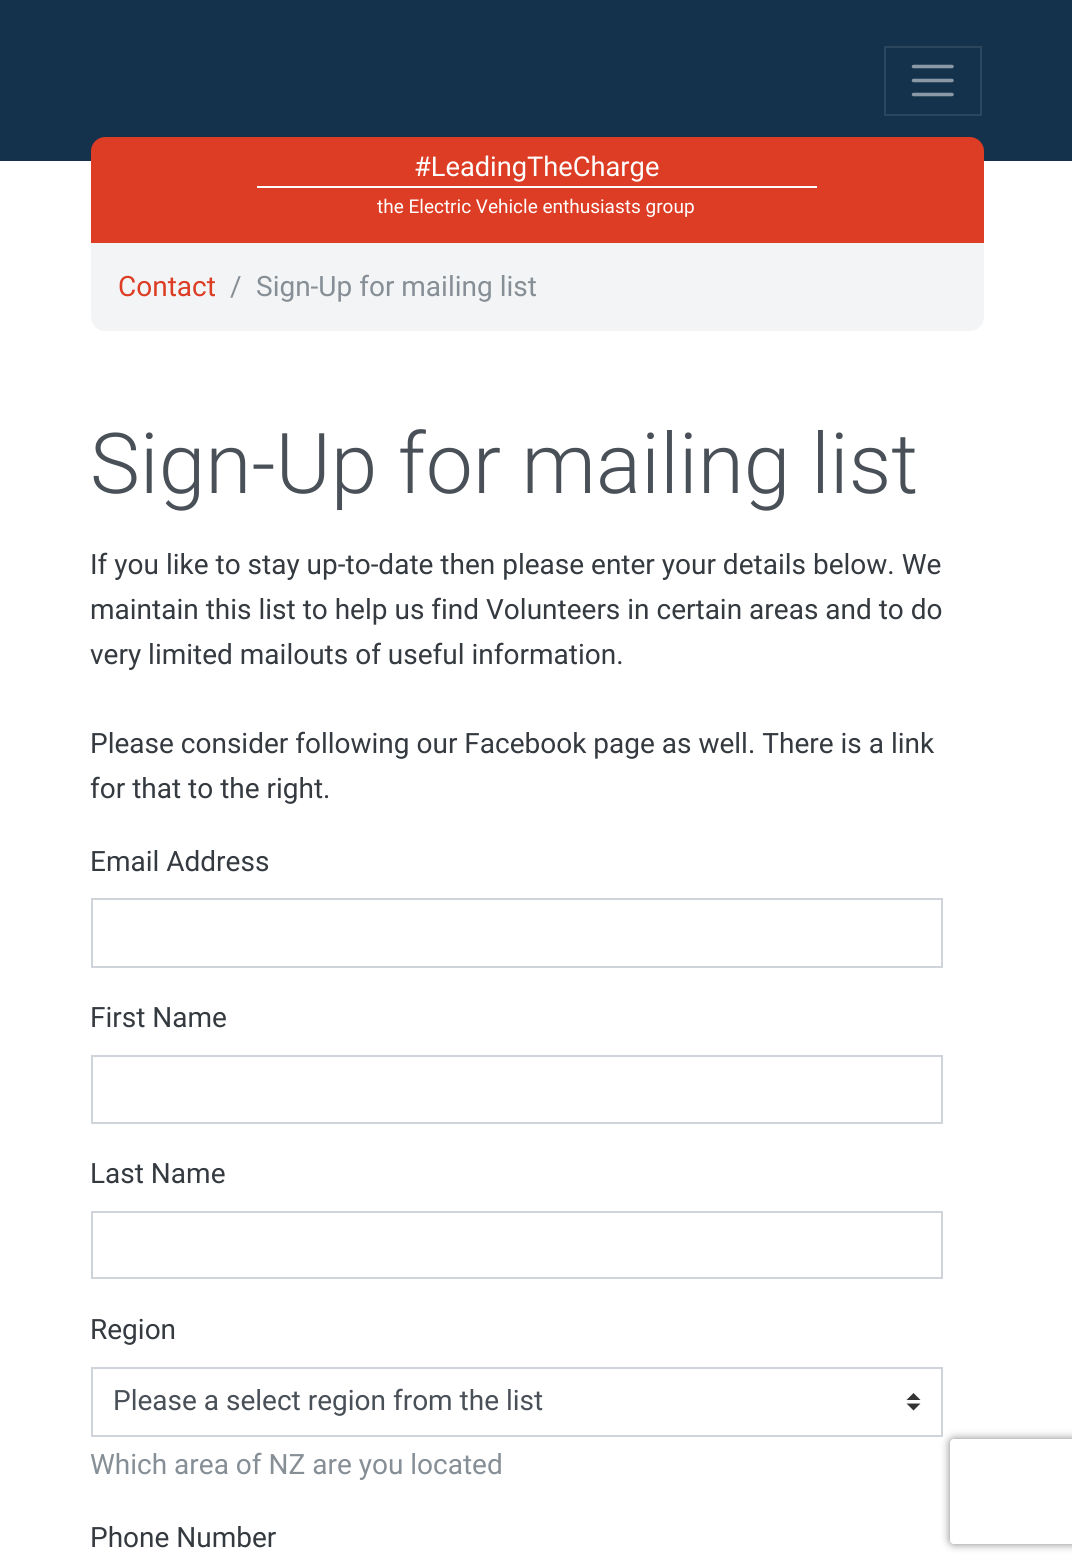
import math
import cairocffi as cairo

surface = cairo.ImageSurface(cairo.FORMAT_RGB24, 1072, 1568)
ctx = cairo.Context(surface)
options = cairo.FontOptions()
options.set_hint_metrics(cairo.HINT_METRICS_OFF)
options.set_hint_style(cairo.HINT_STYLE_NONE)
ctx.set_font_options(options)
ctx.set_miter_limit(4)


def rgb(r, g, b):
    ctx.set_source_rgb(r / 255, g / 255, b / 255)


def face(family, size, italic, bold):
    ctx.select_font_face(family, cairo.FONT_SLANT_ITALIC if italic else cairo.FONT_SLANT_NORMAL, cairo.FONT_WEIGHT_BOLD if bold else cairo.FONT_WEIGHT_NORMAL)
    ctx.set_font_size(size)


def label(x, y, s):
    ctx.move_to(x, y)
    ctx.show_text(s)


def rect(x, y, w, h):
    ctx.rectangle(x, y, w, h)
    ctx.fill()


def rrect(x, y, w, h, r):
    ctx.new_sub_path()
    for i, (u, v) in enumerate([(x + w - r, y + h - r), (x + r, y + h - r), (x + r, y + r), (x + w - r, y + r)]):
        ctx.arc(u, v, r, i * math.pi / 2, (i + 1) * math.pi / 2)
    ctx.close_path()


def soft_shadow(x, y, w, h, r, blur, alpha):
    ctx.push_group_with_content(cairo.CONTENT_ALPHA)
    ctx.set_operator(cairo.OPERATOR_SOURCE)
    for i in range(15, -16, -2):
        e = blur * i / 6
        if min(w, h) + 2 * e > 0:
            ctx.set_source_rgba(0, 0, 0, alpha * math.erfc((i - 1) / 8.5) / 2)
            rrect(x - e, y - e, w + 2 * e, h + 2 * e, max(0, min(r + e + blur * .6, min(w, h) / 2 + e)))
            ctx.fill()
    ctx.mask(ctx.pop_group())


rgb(20, 50, 75)
ctx.paint()
ctx.rectangle(885, 47, 96, 68)
rgb(44, 71, 93)
ctx.stroke()
ctx.new_path()
ctx.move_to(913.5, 66.5)
ctx.line_to(952, 66.5)
ctx.move_to(913.5, 80.5)
ctx.line_to(952, 80.5)
ctx.move_to(913.5, 94.5)
ctx.line_to(952, 94.5)
rgb(138, 153, 165)
ctx.set_line_width(3.5)
ctx.set_line_cap(cairo.LINE_CAP_ROUND)
ctx.stroke()
rgb(255, 255, 255)
rect(0, 161, 1072, 1407)
rgb(220, 61, 36)
ctx.new_path()
ctx.move_to(105, 137)
ctx.line_to(970, 137)
ctx.curve_to(977.5, 137, 984, 143.5, 984, 151)
ctx.line_to(984, 243)
ctx.line_to(91, 243)
ctx.line_to(91, 151)
ctx.curve_to(91, 143.5, 97.5, 137, 105, 137)
ctx.close_path()
ctx.fill()
face('Roboto', 27.25, 0, 0)
rgb(255, 255, 255)
label(414, 176, '#LeadingTheCharge')
rect(257, 186, 560, 2)
face('Roboto', 19, 0, 0)
label(377, 213, 'the Electric Vehicle enthusiasts group')
rgb(242, 244, 245)
ctx.new_path()
ctx.move_to(91, 243)
ctx.line_to(984, 243)
ctx.line_to(984, 317)
ctx.curve_to(984, 324.5, 977.5, 331, 970, 331)
ctx.line_to(105, 331)
ctx.curve_to(97.5, 331, 91, 324.5, 91, 317)
ctx.close_path()
ctx.fill()
face('Roboto', 28, 0, 0)
rgb(220, 61, 36)
label(118, 296, 'Contact')
rgb(134, 142, 150)
label(230, 296, '/')
label(256, 296, 'Sign-Up for mailing list')
face('Roboto Light', 84, 0, 0)
rgb(73, 80, 87)
label(90, 493, 'Sign-Up for mailing list')
face('Roboto', 28, 0, 0)
rgb(52, 58, 64)
label(90, 574, 'If you like to stay up-to-date then please enter your details below. We')
label(90, 619, 'maintain this list to help us find Volunteers in certain areas and to do')
label(90, 664, 'very limited mailouts of useful information.')
label(90, 753, 'Please consider following our Facebook page as well. There is a link')
label(90, 798, 'for that to the right.')
label(90, 871, 'Email Address')
ctx.rectangle(92, 899, 850, 68)
rgb(206, 212, 218)
ctx.set_line_width(2)
ctx.set_line_cap(cairo.LINE_CAP_BUTT)
ctx.stroke()
rgb(52, 58, 64)
label(90, 1027, 'First Name')
ctx.rectangle(92, 1056, 850, 67)
rgb(206, 212, 218)
ctx.stroke()
rgb(52, 58, 64)
label(90, 1183, 'Last Name')
ctx.rectangle(92, 1212, 850, 66)
rgb(206, 212, 218)
ctx.stroke()
rgb(52, 58, 64)
label(90, 1339, 'Region')
rgb(51, 51, 51)
ctx.new_path()
ctx.move_to(913.5, 1393)
ctx.line_to(906.5, 1400)
ctx.line_to(920.5, 1400)
ctx.close_path()
ctx.move_to(913.5, 1410.5)
ctx.line_to(906.5, 1403.5)
ctx.line_to(920.5, 1403.5)
ctx.close_path()
ctx.fill()
ctx.rectangle(92, 1368, 850, 68)
rgb(206, 212, 218)
ctx.stroke()
rgb(73, 80, 87)
label(113, 1410, 'Please a select region from the list')
rgb(134, 142, 150)
label(90, 1474, 'Which area of NZ are you located')
rgb(52, 58, 64)
label(90, 1547, 'Phone Number')
ctx.save()
ctx.set_fill_rule(cairo.FILL_RULE_EVEN_ODD)
ctx.new_path()
ctx.move_to(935, 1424)
ctx.line_to(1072, 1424)
ctx.line_to(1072, 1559)
ctx.line_to(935, 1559)
ctx.close_path()
ctx.move_to(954, 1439)
ctx.line_to(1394, 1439)
ctx.curve_to(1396, 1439, 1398, 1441, 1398, 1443)
ctx.line_to(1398, 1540)
ctx.curve_to(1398, 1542, 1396, 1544, 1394, 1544)
ctx.line_to(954, 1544)
ctx.curve_to(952, 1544, 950, 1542, 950, 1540)
ctx.line_to(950, 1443)
ctx.curve_to(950, 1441, 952, 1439, 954, 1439)
ctx.close_path()
ctx.clip()
rgb(128, 128, 128)
soft_shadow(950, 1439, 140, 105, 4, 4.5, 1)
ctx.restore()
surface.write_to_png('render.png')
